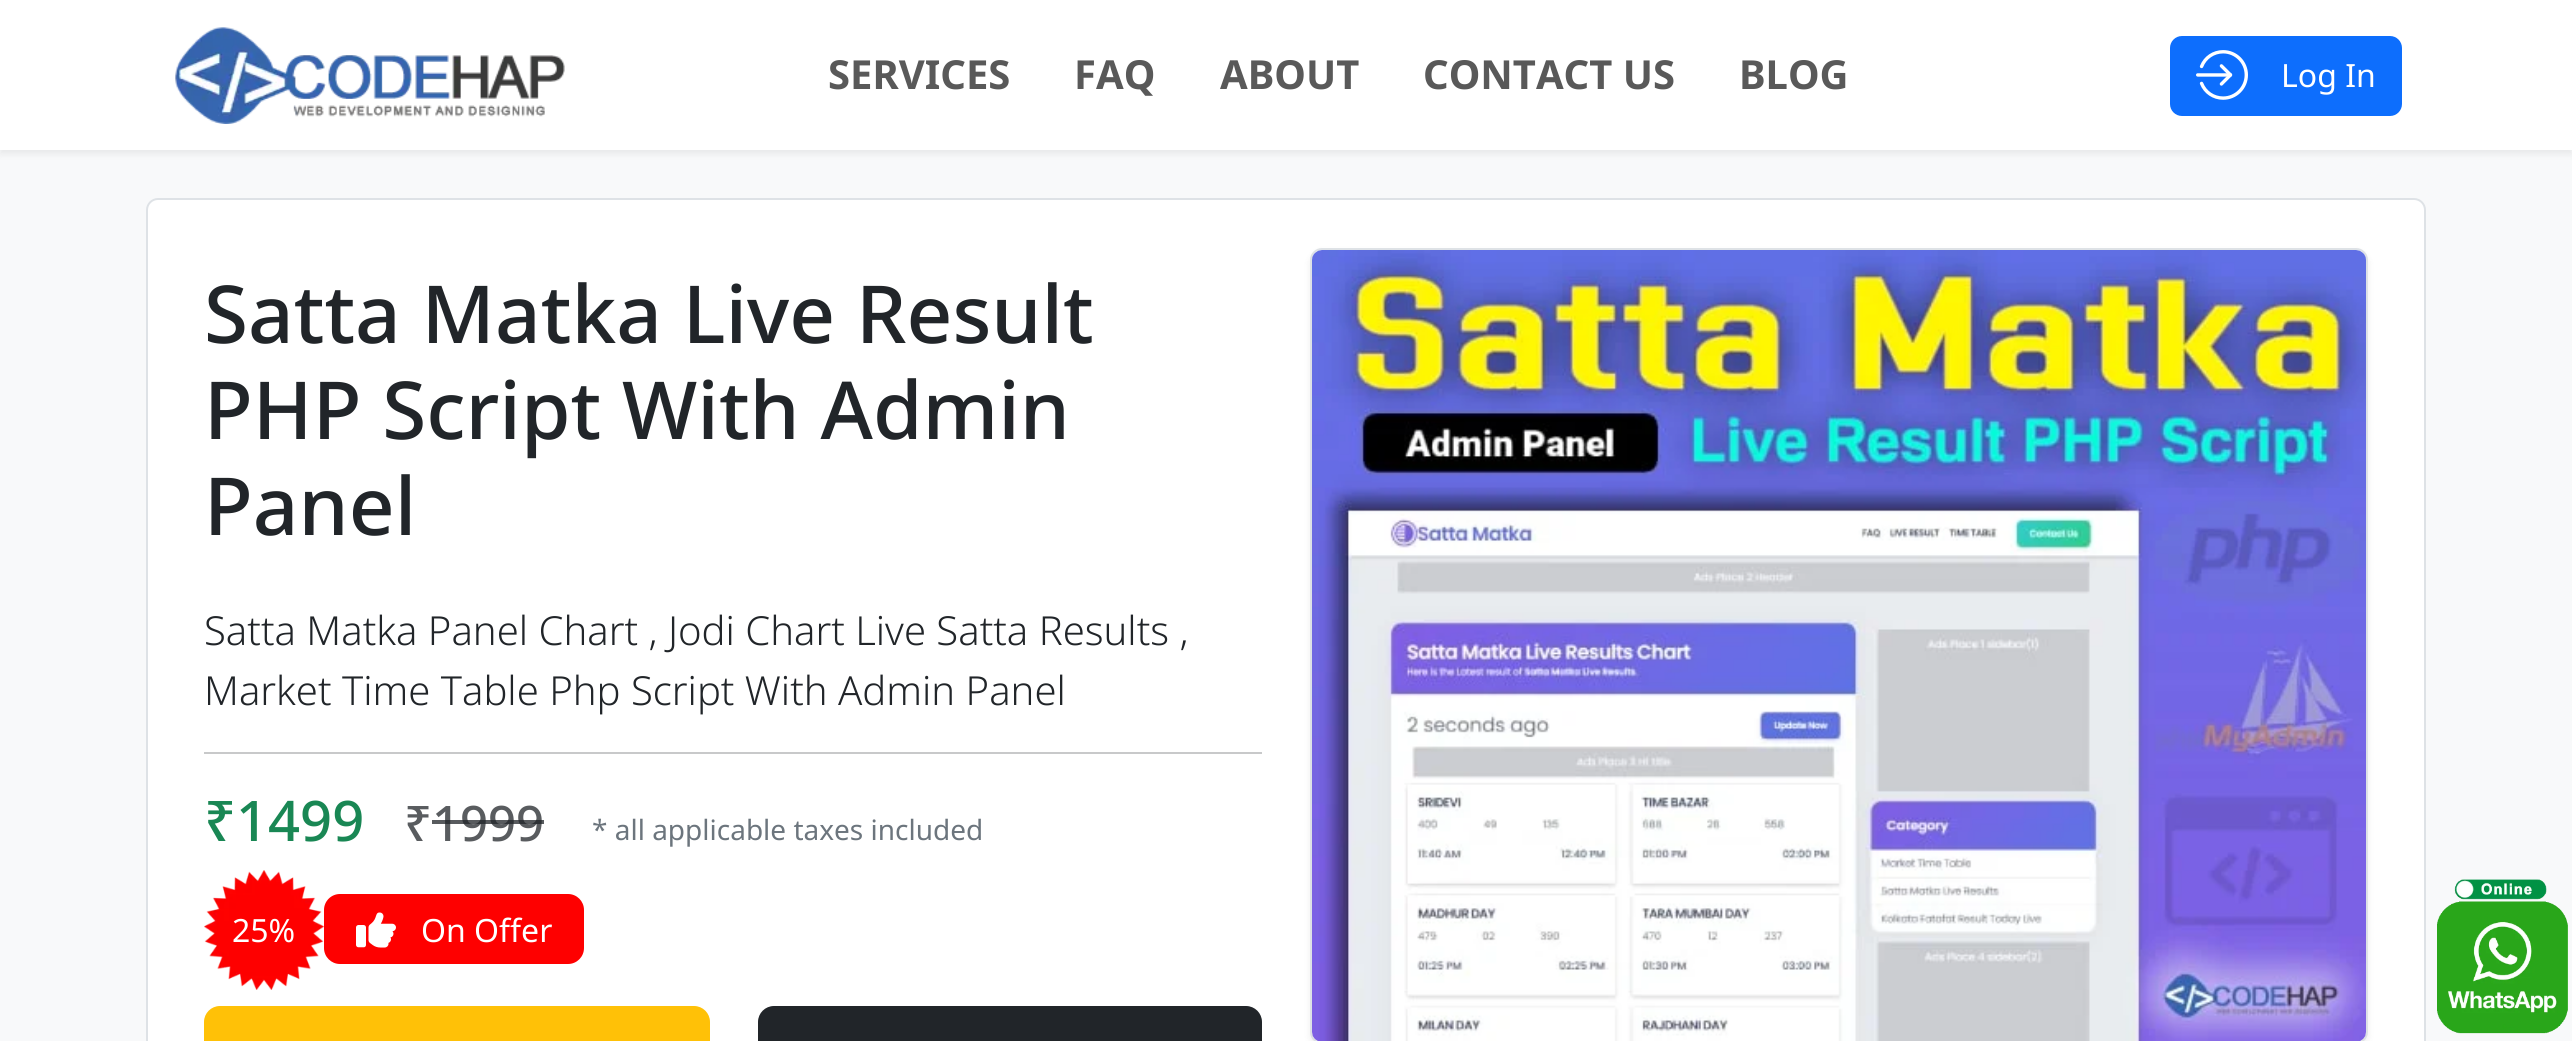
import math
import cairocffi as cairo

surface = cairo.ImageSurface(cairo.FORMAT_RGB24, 2572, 1041)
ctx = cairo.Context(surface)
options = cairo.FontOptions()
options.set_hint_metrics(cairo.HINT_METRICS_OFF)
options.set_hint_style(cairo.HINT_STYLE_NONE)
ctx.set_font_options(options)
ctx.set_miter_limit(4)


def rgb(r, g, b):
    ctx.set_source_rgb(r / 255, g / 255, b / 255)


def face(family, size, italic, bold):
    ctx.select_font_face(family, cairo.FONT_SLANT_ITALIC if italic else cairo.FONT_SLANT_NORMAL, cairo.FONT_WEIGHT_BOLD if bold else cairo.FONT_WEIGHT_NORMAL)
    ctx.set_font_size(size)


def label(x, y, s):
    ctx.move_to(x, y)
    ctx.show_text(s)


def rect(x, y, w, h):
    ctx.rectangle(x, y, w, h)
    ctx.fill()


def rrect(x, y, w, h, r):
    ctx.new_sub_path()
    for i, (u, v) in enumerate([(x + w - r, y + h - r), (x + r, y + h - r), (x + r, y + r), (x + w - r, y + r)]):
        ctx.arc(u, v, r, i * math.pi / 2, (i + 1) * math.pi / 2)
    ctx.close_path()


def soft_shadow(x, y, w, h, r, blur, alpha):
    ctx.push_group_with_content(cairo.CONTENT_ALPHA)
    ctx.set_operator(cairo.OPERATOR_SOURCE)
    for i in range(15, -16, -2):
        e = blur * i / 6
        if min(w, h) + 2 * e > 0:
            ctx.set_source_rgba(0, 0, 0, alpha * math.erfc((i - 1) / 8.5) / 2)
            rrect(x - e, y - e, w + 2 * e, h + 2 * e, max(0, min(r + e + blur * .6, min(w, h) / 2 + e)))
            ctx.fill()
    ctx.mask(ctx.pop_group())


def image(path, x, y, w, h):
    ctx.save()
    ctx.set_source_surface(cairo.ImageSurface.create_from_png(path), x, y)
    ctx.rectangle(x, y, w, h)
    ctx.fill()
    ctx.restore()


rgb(248, 249, 250)
ctx.paint()
rgb(0, 0, 0)
soft_shadow(0, 4, 2572, 150, 0, 4, 0.07)
rgb(255, 255, 255)
rect(0, 0, 2572, 150)
image('image0.png', 175, 27, 390, 97)
face('Noto Sans', 40, 0, 1)
rgb(89, 89, 89)
label(828, 89, 'SERVICES')
label(1074, 89, 'FAQ')
label(1220, 89, 'ABOUT')
label(1423, 89, 'CONTACT US')
label(1739, 89, 'BLOG')
rgb(13, 110, 253)
rrect(2171, 37, 230, 78, 11)
ctx.fill_preserve()
ctx.stroke()
image('image1.png', 2196, 50, 52, 50)
face('Noto Sans', 32, 0, 0)
rgb(255, 255, 255)
label(2281, 87, 'Log In')
rrect(147, 199, 2278, 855, 11)
ctx.fill_preserve()
rgb(222, 226, 230)
ctx.stroke()
face('Noto Sans Medium', 80, 0, 0)
rgb(33, 37, 41)
label(204, 343, 'Satta Matka Live Result')
label(204, 439, 'PHP Script With Admin')
label(204, 535, 'Panel')
face('Noto Sans Light', 40, 0, 0)
label(204, 645, 'Satta Matka Panel Chart , Jodi Chart Live Satta Results ,')
label(204, 705, 'Market Time Table Php Script With Admin Panel')
rgb(200, 201, 202)
rect(204, 752, 1058, 2)
face('Noto Sans Medium', 56, 0, 0)
rgb(25, 135, 84)
label(204, 841, '₹1499')
face('Noto Sans Medium', 49, 0, 0)
rgb(89, 92, 95)
label(404, 841, '₹1999')
ctx.set_source_rgba(0.129, 0.145, 0.161, 0.75)
rect(432, 820, 112, 4)
face('Noto Sans', 28, 0, 0)
rgb(108, 117, 125)
label(592, 840, '* all applicable taxes included')
image('image2.png', 204, 870, 120, 120)
face('Noto Sans', 32, 0, 0)
rgb(255, 255, 255)
label(232, 942, '25%')
rgb(254, 0, 0)
rrect(324, 894, 260, 70, 16)
ctx.fill()
image('image3.png', 356, 912, 40, 36)
rgb(255, 255, 255)
label(421, 942, 'On Offer')
rgb(255, 193, 7)
rrect(205, 1007, 504, 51, 15)
ctx.fill_preserve()
ctx.stroke()
rgb(33, 37, 41)
rrect(759, 1007, 502, 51, 15)
ctx.fill_preserve()
ctx.stroke()
rgb(0, 0, 0)
soft_shadow(1310, 252, 1058, 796, 12, 4, 0.07)
rrect(1311, 249, 1056, 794, 11)
rgb(222, 226, 230)
ctx.stroke()
image('image4.png', 1312, 250, 1054, 791)
image('image5.png', 2437, 879, 131, 155)
surface.write_to_png('render.png')
